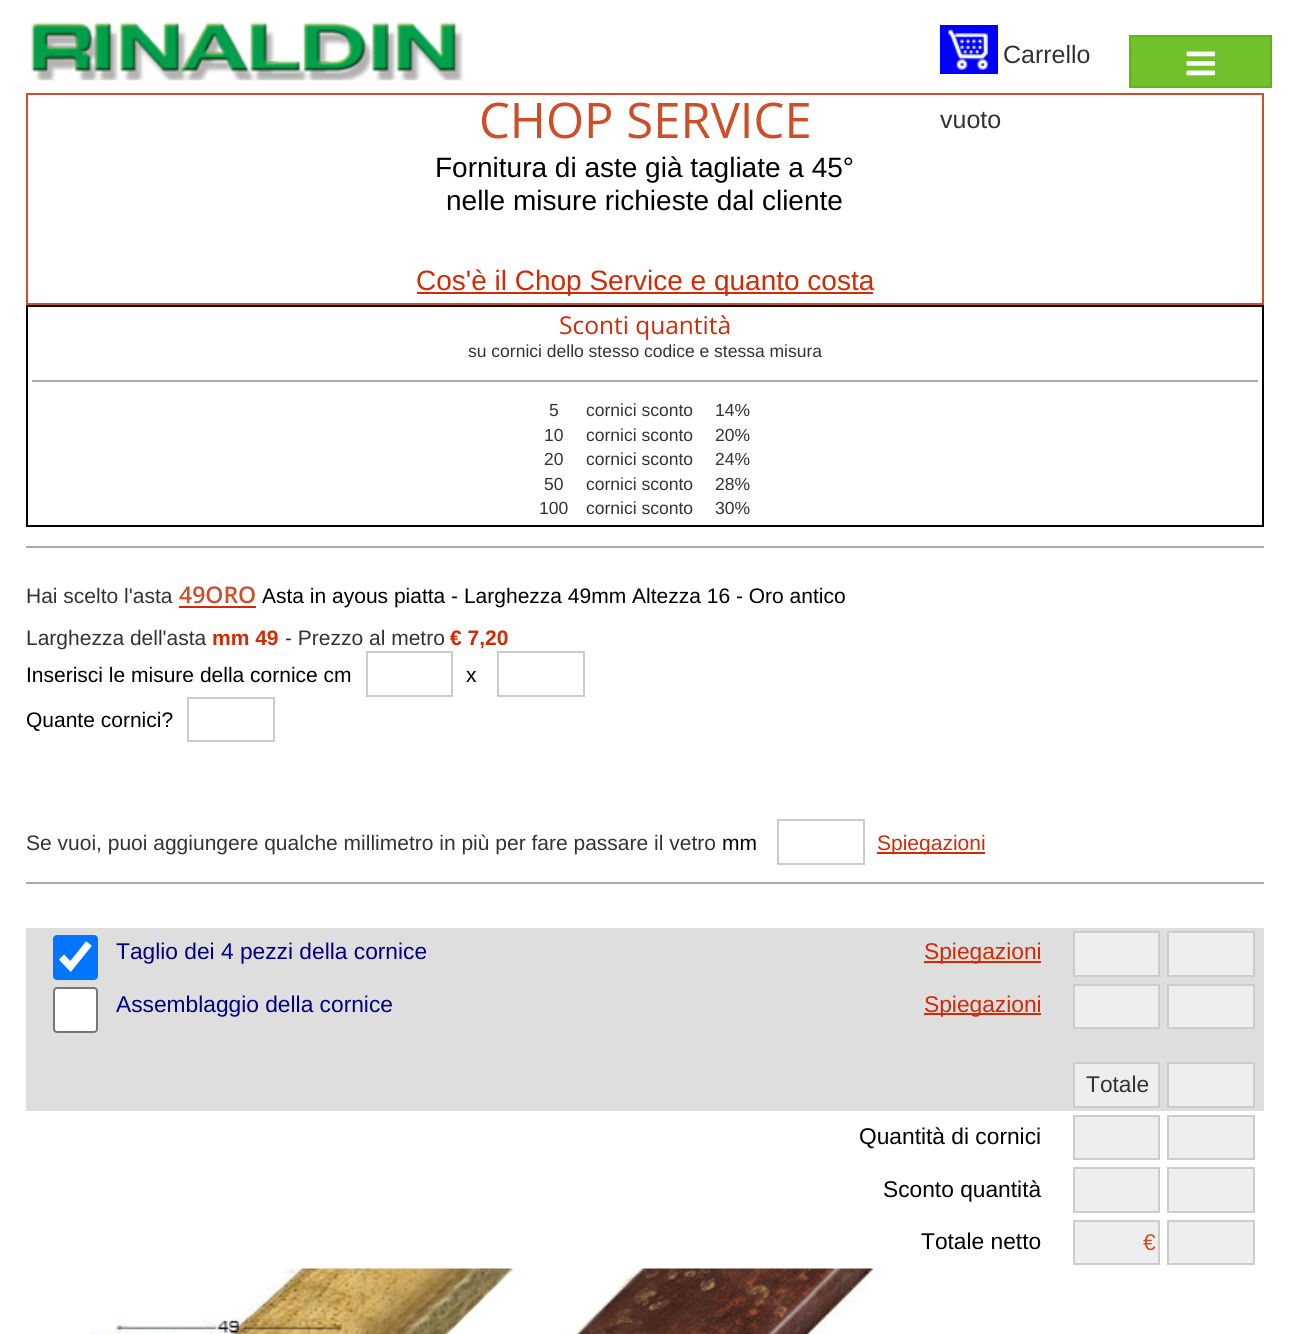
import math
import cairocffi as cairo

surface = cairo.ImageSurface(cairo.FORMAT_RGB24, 1289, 1334)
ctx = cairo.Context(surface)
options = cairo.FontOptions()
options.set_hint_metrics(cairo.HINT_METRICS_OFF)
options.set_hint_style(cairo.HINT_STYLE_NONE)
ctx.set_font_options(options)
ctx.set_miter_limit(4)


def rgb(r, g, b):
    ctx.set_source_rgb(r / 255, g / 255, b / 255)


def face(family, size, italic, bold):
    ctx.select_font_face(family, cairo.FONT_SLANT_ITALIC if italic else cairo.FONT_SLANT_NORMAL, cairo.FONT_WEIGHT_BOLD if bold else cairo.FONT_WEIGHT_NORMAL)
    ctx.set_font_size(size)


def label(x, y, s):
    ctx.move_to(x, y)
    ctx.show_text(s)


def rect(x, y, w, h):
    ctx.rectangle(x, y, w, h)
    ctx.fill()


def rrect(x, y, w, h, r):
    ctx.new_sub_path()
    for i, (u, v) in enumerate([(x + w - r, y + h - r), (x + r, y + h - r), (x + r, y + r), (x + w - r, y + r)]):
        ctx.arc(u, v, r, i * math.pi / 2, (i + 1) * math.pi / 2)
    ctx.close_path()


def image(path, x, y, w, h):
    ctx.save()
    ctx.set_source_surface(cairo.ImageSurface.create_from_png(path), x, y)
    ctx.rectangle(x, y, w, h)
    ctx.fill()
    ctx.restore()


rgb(255, 255, 255)
ctx.paint()
image('image0.png', 31, 22, 433, 59)
rgb(0, 0, 255)
rect(940, 25, 58, 49)
image('image1.png', 948, 29, 41, 41)
face('Liberation Sans', 25, 0, 0)
rgb(51, 51, 51)
label(1003, 63, 'Carrello')
ctx.rectangle(27, 94, 1236, 210)
rgb(205, 78, 40)
ctx.stroke()
rgb(51, 51, 51)
label(940, 128, 'vuoto')
rgb(114, 192, 44)
ctx.rectangle(1130, 36, 141, 51)
ctx.fill_preserve()
rgb(95, 182, 17)
ctx.stroke()
image('image2.png', 1186, 51, 29, 25)
face('Open Sans', 49, 0, 0)
rgb(205, 78, 40)
label(479, 138, 'CHOP SERVICE')
face('Liberation Sans', 28, 0, 0)
rgb(0, 0, 0)
label(435, 177, 'Fornitura di aste già tagliate a 45°')
label(446, 210, 'nelle misure richieste dal cliente')
rgb(209, 42, 4)
rect(417, 292, 456, 2)
label(416, 290, 'Cos\'è il Chop Service e quanto costa')
ctx.rectangle(27, 306, 1236, 220)
rgb(0, 0, 0)
ctx.stroke()
face('Open Sans', 24.5, 0, 0)
rgb(209, 42, 4)
label(559, 334, 'Sconti quantità')
face('Liberation Sans', 17.5, 0, 0)
rgb(51, 51, 51)
label(468, 357, 'su cornici dello stesso codice e stessa misura')
rgb(170, 170, 170)
rect(32, 380, 1226, 2)
rgb(51, 51, 51)
label(549, 416, '5')
label(586, 416, 'cornici sconto')
label(715, 416, '14%')
label(544, 441, '10')
label(586, 441, 'cornici sconto')
label(715, 441, '20%')
label(544, 465, '20')
label(586, 465, 'cornici sconto')
label(715, 465, '24%')
label(544, 490, '50')
label(586, 490, 'cornici sconto')
label(715, 490, '28%')
label(539, 514, '100')
label(586, 514, 'cornici sconto')
label(715, 514, '30%')
rgb(170, 170, 170)
rect(26, 546, 1238, 2)
face('Liberation Sans', 21, 0, 0)
rgb(51, 51, 51)
label(26, 603, 'Hai scelto l\'asta')
face('Open Sans SemiBold', 23, 0, 0)
rgb(205, 78, 40)
label(179, 603, '49ORO')
rgb(209, 42, 4)
rect(179, 606, 77, 2)
face('Liberation Sans', 21, 0, 0)
rgb(0, 0, 0)
label(262, 603, 'Asta in ayous piatta - Larghezza 49mm Altezza 16 - Oro antico')
rgb(51, 51, 51)
label(26, 645, 'Larghezza dell\'asta')
face('Liberation Sans', 21, 0, 1)
rgb(209, 42, 4)
label(212, 645, 'mm 49')
face('Liberation Sans', 21, 0, 0)
rgb(51, 51, 51)
label(285, 645, '- Prezzo al metro')
face('Liberation Sans', 21, 0, 1)
rgb(209, 42, 4)
label(450, 645, '€ 7,20')
face('Liberation Sans', 21, 0, 0)
rgb(0, 0, 0)
label(26, 682, 'Inserisci le misure della cornice cm')
ctx.rectangle(367, 652, 85, 44)
rgb(204, 204, 204)
ctx.stroke()
rgb(0, 0, 0)
label(466, 682, 'x')
ctx.rectangle(498, 652, 86, 44)
rgb(204, 204, 204)
ctx.stroke()
rgb(0, 0, 0)
label(26, 727, 'Quante cornici?')
ctx.rectangle(188, 698, 86, 43)
rgb(204, 204, 204)
ctx.stroke()
rgb(51, 51, 51)
label(26, 850, 'Se vuoi, puoi aggiungere qualche millimetro in più per fare passare il vetro')
rgb(0, 0, 0)
label(722, 850, 'mm')
ctx.rectangle(778, 820, 86, 44)
rgb(204, 204, 204)
ctx.stroke()
rgb(209, 42, 4)
rect(877, 852, 108, 2)
label(877, 850, 'Spiegazioni')
rgb(170, 170, 170)
rect(26, 882, 1238, 2)
rgb(222, 222, 222)
rect(26, 928, 1238, 183)
rgb(0, 117, 255)
rrect(53, 935, 45, 45, 4)
ctx.fill()
ctx.new_path()
ctx.move_to(61.5, 957)
ctx.line_to(70.5, 966.5)
ctx.line_to(89, 943.5)
rgb(255, 255, 255)
ctx.set_line_width(7.3)
ctx.stroke()
face('Liberation Sans', 22.75, 0, 0)
rgb(0, 0, 128)
label(116, 959, 'Taglio dei 4 pezzi della cornice')
rgb(209, 42, 4)
rect(924, 961, 117, 2)
label(924, 959, 'Spiegazioni')
rgb(238, 238, 238)
ctx.rectangle(1074, 932, 85, 44)
ctx.fill_preserve()
rgb(204, 204, 204)
ctx.set_line_width(2)
ctx.stroke()
rgb(238, 238, 238)
ctx.rectangle(1168, 932, 86, 44)
ctx.fill_preserve()
rgb(204, 204, 204)
ctx.stroke()
rgb(255, 255, 255)
rrect(54, 988, 43, 44, 3)
ctx.fill_preserve()
rgb(118, 118, 118)
ctx.stroke()
rgb(0, 0, 128)
label(116, 1012, 'Assemblaggio della cornice')
rgb(209, 42, 4)
rect(924, 1013, 117, 2)
label(924, 1012, 'Spiegazioni')
rgb(238, 238, 238)
ctx.rectangle(1074, 985, 85, 43)
ctx.fill_preserve()
rgb(204, 204, 204)
ctx.stroke()
rgb(238, 238, 238)
ctx.rectangle(1168, 985, 86, 43)
ctx.fill_preserve()
rgb(204, 204, 204)
ctx.stroke()
rgb(238, 238, 238)
ctx.rectangle(1074, 1063, 85, 44)
ctx.fill_preserve()
rgb(204, 204, 204)
ctx.stroke()
rgb(51, 51, 51)
label(1086, 1092, 'Totale')
rgb(238, 238, 238)
ctx.rectangle(1168, 1063, 86, 44)
ctx.fill_preserve()
rgb(204, 204, 204)
ctx.stroke()
rgb(0, 0, 0)
label(859, 1144, 'Quantità di cornici')
rgb(238, 238, 238)
ctx.rectangle(1074, 1116, 85, 43)
ctx.fill_preserve()
rgb(204, 204, 204)
ctx.stroke()
rgb(238, 238, 238)
ctx.rectangle(1168, 1116, 86, 43)
ctx.fill_preserve()
rgb(204, 204, 204)
ctx.stroke()
rgb(0, 0, 0)
label(883, 1197, 'Sconto quantità')
rgb(238, 238, 238)
ctx.rectangle(1074, 1168, 85, 44)
ctx.fill_preserve()
rgb(204, 204, 204)
ctx.stroke()
rgb(238, 238, 238)
ctx.rectangle(1168, 1168, 86, 44)
ctx.fill_preserve()
rgb(204, 204, 204)
ctx.stroke()
rgb(0, 0, 0)
label(921, 1249, 'Totale netto')
rgb(238, 238, 238)
ctx.rectangle(1074, 1221, 85, 43)
ctx.fill_preserve()
rgb(204, 204, 204)
ctx.stroke()
rgb(205, 78, 40)
label(1143, 1250, '€')
rgb(238, 238, 238)
ctx.rectangle(1168, 1221, 86, 43)
ctx.fill_preserve()
rgb(204, 204, 204)
ctx.stroke()
image('image3.png', 91, 1268, 791, 66)
surface.write_to_png('render.png')
